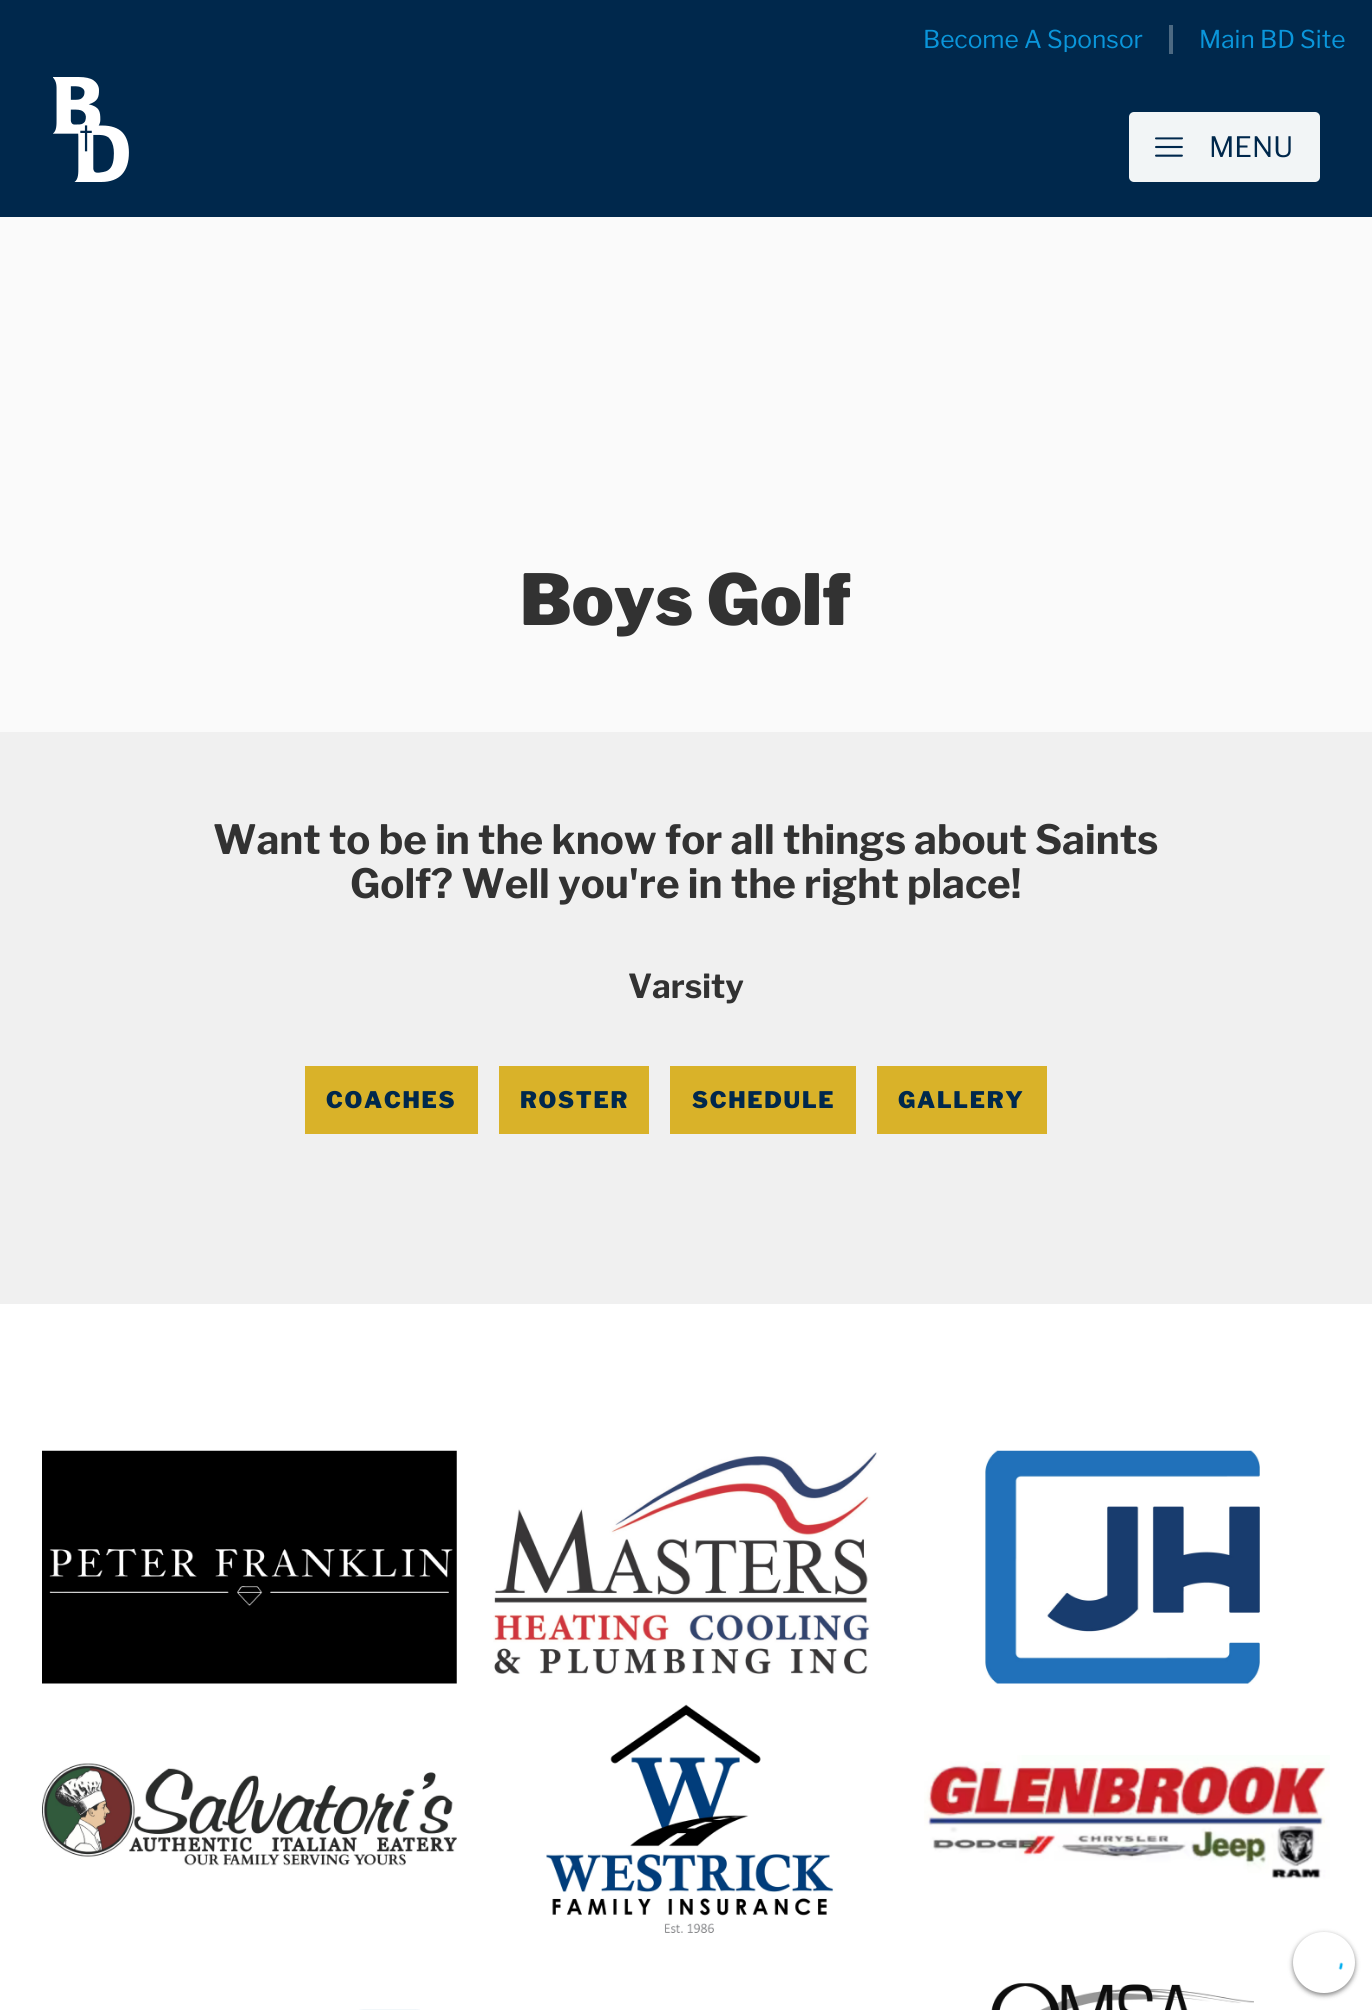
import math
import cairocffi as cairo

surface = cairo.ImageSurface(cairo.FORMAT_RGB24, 1372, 2010)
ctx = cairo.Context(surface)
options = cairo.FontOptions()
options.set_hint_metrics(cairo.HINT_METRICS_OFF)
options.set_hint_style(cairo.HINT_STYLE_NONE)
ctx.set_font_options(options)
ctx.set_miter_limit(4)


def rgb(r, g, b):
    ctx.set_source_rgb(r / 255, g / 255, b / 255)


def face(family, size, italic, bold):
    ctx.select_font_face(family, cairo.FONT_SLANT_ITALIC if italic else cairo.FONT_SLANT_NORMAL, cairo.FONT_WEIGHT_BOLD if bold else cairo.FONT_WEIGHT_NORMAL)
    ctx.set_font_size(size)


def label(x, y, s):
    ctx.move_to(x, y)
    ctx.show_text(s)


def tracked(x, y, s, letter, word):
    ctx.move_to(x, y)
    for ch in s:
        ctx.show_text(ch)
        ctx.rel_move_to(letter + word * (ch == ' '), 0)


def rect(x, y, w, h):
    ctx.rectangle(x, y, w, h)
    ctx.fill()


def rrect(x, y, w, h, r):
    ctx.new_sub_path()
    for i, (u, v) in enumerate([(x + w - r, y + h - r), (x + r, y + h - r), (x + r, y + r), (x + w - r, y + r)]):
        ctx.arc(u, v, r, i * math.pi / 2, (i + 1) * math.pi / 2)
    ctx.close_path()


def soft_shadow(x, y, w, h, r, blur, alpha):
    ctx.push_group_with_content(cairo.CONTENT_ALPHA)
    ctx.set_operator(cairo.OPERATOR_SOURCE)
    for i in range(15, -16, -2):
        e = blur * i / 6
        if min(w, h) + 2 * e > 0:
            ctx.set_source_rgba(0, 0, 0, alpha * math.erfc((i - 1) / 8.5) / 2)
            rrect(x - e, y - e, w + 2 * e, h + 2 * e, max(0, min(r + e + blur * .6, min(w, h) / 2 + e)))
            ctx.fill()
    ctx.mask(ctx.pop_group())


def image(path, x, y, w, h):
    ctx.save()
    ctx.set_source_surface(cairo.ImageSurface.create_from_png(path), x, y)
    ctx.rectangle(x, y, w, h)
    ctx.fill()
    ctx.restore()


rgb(255, 255, 255)
ctx.paint()
rgb(0, 40, 76)
rect(0, 0, 1372, 217)
rgb(76, 105, 130)
rect(1169, 25, 4, 29)
face('Libre Franklin', 24.5, 0, 0)
rgb(10, 150, 219)
label(923, 48, 'Become A Sponsor')
label(1199, 48, 'Main BD Site')
image('image0.png', 53, 77, 76, 105)
rgb(242, 245, 246)
rrect(1129, 112, 191, 70, 5)
ctx.fill()
image('image1.png', 1155, 137, 28, 20)
face('Libre Franklin', 28, 0, 0)
rgb(0, 40, 76)
label(1209, 157, 'MENU')
rgb(240, 240, 240)
rect(0, 732, 1372, 572)
rgb(250, 250, 250)
rect(0, 217, 1372, 515)
face('Libre Franklin Black', 70, 0, 0)
rgb(50, 50, 50)
label(520, 625, 'Boys Golf')
face('Libre Franklin', 40.25, 0, 1)
label(213, 854, 'Want to be in the know for all things about Saints')
label(350, 898, 'Golf? Well you\'re in the right place!')
face('Libre Franklin', 33, 0, 1)
label(628, 998, 'Varsity')
rgb(217, 178, 41)
rect(305, 1066, 173, 68)
face('Libre Franklin Black', 22.75, 0, 0)
rgb(0, 40, 76)
tracked(326, 1108, 'COACHES', 1.75, 0)
rgb(217, 178, 41)
rect(499, 1066, 150, 68)
rgb(0, 40, 76)
tracked(520, 1108, 'ROSTER', 1.75, 0)
rgb(217, 178, 41)
rect(670, 1066, 186, 68)
rgb(0, 40, 76)
tracked(692, 1108, 'SCHEDULE', 1.75, 0)
rgb(217, 178, 41)
rect(877, 1066, 170, 68)
rgb(0, 40, 76)
tracked(898, 1108, 'GALLERY', 1.75, 0)
image('image2.png', 42, 1450, 415, 234)
image('image3.png', 493, 1452, 384, 222)
image('image4.png', 985, 1450, 275, 234)
image('image5.png', 42, 1763, 415, 103)
image('image6.png', 546, 1704, 288, 229)
image('image7.png', 924, 1755, 406, 125)
image('image8.png', 359, 2009, 61, 1)
image('image9.png', 991, 1983, 263, 27)
rgb(0, 0, 0)
soft_shadow(1293, 1934, 62, 61, 30.5, 2.5, 0.5)
rgb(255, 255, 255)
rrect(1293, 1932, 62, 61, 30.5)
ctx.fill()
image('image10.png', 1338, 1962, 6, 8)
surface.write_to_png('render.png')
